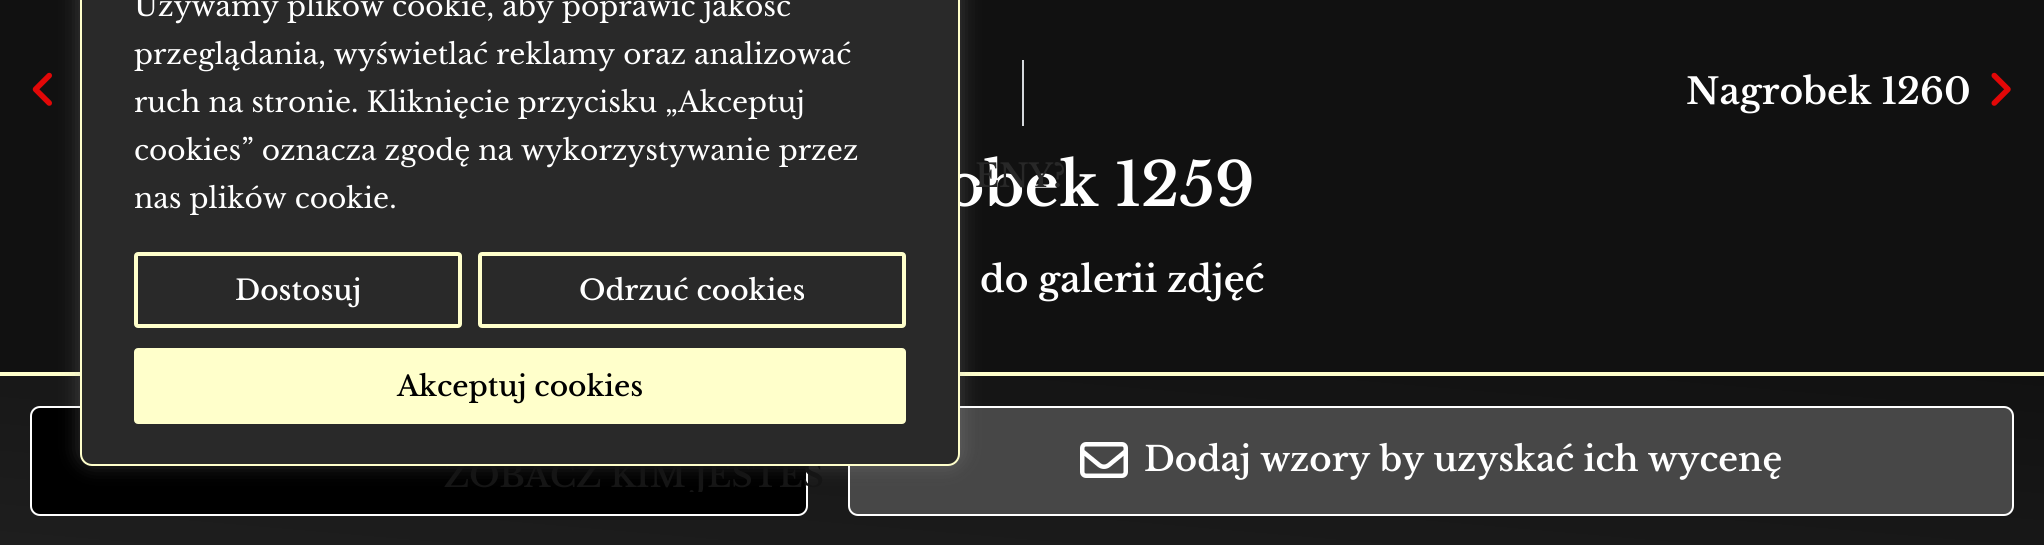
import math
import cairocffi as cairo

surface = cairo.ImageSurface(cairo.FORMAT_RGB24, 2044, 545)
ctx = cairo.Context(surface)
options = cairo.FontOptions()
options.set_hint_metrics(cairo.HINT_METRICS_OFF)
options.set_hint_style(cairo.HINT_STYLE_NONE)
ctx.set_font_options(options)
ctx.set_miter_limit(4)


def rgb(r, g, b):
    ctx.set_source_rgb(r / 255, g / 255, b / 255)


def face(family, size, italic, bold):
    ctx.select_font_face(family, cairo.FONT_SLANT_ITALIC if italic else cairo.FONT_SLANT_NORMAL, cairo.FONT_WEIGHT_BOLD if bold else cairo.FONT_WEIGHT_NORMAL)
    ctx.set_font_size(size)


def label(x, y, s):
    ctx.move_to(x, y)
    ctx.show_text(s)


def rect(x, y, w, h):
    ctx.rectangle(x, y, w, h)
    ctx.fill()


def rrect(x, y, w, h, r):
    ctx.new_sub_path()
    for i, (u, v) in enumerate([(x + w - r, y + h - r), (x + r, y + h - r), (x + r, y + r), (x + w - r, y + r)]):
        ctx.arc(u, v, r, i * math.pi / 2, (i + 1) * math.pi / 2)
    ctx.close_path()


def soft_shadow(x, y, w, h, r, blur, alpha):
    ctx.push_group_with_content(cairo.CONTENT_ALPHA)
    ctx.set_operator(cairo.OPERATOR_SOURCE)
    for i in range(15, -16, -2):
        e = blur * i / 6
        if min(w, h) + 2 * e > 0:
            ctx.set_source_rgba(0, 0, 0, alpha * math.erfc((i - 1) / 8.5) / 2)
            rrect(x - e, y - e, w + 2 * e, h + 2 * e, max(0, min(r + e + blur * .6, min(w, h) / 2 + e)))
            ctx.fill()
    ctx.mask(ctx.pop_group())


def image(path, x, y, w, h):
    ctx.save()
    ctx.set_source_surface(cairo.ImageSurface.create_from_png(path), x, y)
    ctx.rectangle(x, y, w, h)
    ctx.fill()
    ctx.restore()


rgb(17, 17, 17)
ctx.paint()
image('image0.png', 32, 72, 20, 34)
gradient = cairo.LinearGradient(1007, 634, 1037, 288)
gradient.add_color_stop_rgba(0, 0.118, 0.118, 0.118, 1)
gradient.add_color_stop_rgba(1, 0.067, 0.067, 0.067, 1)
ctx.set_source(gradient)
rect(0, 376, 2044, 169)
rgb(255, 255, 203)
rect(0, 372, 2044, 4)
rgb(0, 0, 0)
rrect(31, 407, 776, 108, 9)
ctx.fill_preserve()
rgb(255, 255, 255)
ctx.stroke()
rgb(71, 71, 71)
rrect(849, 407, 1164, 108, 9)
ctx.fill_preserve()
rgb(255, 255, 255)
ctx.stroke()
rgb(172, 171, 171)
soft_shadow(80, -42, 880, 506, 12, 10, 0.3)
face('Libre Baskerville SemiBold', 60, 0, 0)
rgb(255, 255, 255)
label(945, 206, 'obek 1259')
ctx.save()
ctx.rectangle(306, 54, 1432, 438)
ctx.clip()
face('Libre Baskerville SemiBold', 32, 0, 0)
rgb(21, 21, 21)
label(444, 487, 'ZOBACZ KIM JESTEŚ')
ctx.restore()
rgb(41, 41, 41)
rrect(81, -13, 878, 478, 11)
ctx.fill_preserve()
rgb(255, 255, 203)
ctx.stroke()
face('Libre Baskerville', 28, 0, 0)
rgb(255, 255, 255)
label(134, 16, 'Używamy plików cookie, aby poprawić jakość')
label(134, 64, 'przeglądania, wyświetlać reklamy oraz analizować')
label(134, 112, 'ruch na stronie. Kliknięcie przycisku „Akceptuj')
label(134, 160, 'cookies” oznacza zgodę na wykorzystywanie przez')
label(134, 208, 'nas plików cookie.')
rrect(136, 254, 324, 72, 2)
rgb(255, 255, 203)
ctx.set_line_width(4)
ctx.stroke()
face('Libre Baskerville Medium', 28, 0, 0)
rgb(255, 255, 255)
label(235, 300, 'Dostosuj')
rrect(480, 254, 424, 72, 2)
rgb(255, 255, 203)
ctx.stroke()
rgb(255, 255, 255)
label(579, 300, 'Odrzuć cookies')
rgb(255, 255, 203)
rrect(136, 350, 768, 72, 2)
ctx.fill_preserve()
ctx.stroke()
rgb(0, 0, 0)
label(397, 396, 'Akceptuj cookies')
rgb(213, 216, 220)
rect(1022, 60, 2, 66)
face('Libre Baskerville SemiBold', 36, 0, 0)
rgb(255, 255, 255)
label(1686, 104, 'Nagrobek 1260')
image('image1.png', 1991, 72, 20, 34)
label(980, 292, 'do galerii zdjęć')
face('Libre Baskerville SemiBold', 32, 0, 0)
rgb(40, 40, 40)
label(975, 187, 'ENY?')
image('image2.png', 1080, 442, 48, 36)
face('Libre Baskerville SemiBold', 34, 0, 0)
rgb(255, 255, 255)
label(1144, 471, 'Dodaj wzory by uzyskać ich wycenę')
surface.write_to_png('render.png')
